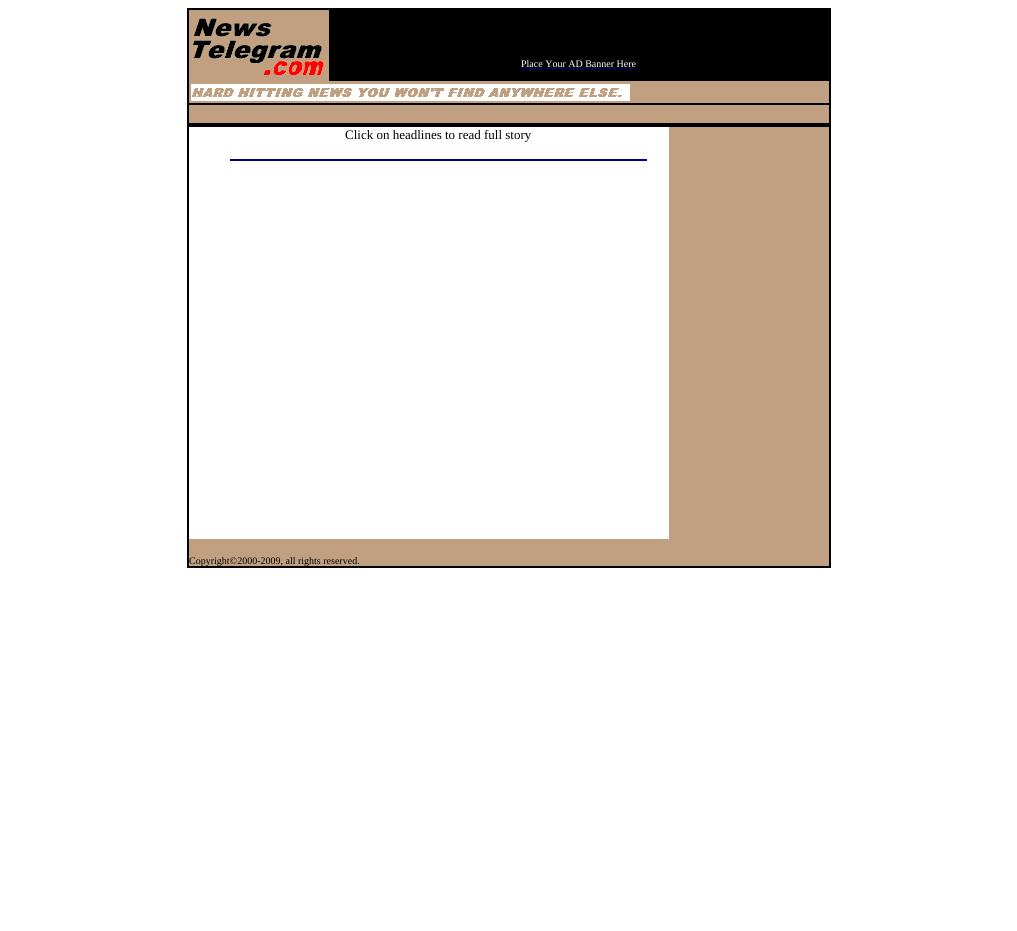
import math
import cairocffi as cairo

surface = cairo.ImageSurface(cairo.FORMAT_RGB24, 1017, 931)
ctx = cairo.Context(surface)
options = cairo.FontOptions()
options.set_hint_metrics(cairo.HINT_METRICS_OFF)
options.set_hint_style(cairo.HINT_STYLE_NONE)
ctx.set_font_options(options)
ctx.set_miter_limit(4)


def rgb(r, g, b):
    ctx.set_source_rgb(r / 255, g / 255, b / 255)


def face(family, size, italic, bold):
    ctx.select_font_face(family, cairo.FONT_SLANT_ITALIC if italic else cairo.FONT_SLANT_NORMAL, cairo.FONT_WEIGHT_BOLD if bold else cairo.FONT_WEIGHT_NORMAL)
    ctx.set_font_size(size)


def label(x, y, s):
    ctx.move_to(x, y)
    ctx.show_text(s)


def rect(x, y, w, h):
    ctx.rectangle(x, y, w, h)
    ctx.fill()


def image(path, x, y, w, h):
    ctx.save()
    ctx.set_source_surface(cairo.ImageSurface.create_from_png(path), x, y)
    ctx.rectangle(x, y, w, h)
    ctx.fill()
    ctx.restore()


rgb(255, 255, 255)
ctx.paint()
rgb(192, 160, 128)
rect(189, 10, 640, 556)
ctx.rectangle(187.5, 8.5, 643, 559)
rgb(0, 0, 0)
ctx.set_line_width(1)
ctx.stroke()
ctx.rectangle(188.5, 9.5, 641, 94)
ctx.stroke()
image('image0.png', 193, 18, 131, 58)
rect(329, 10, 500, 71)
face('Liberation Serif', 10, 0, 0)
rgb(255, 255, 255)
label(521, 67, 'Place Your AD Banner Here')
rgb(0, 0, 128)
rect(521, 68, 115, 1)
image('image1.png', 189, 81, 445, 22)
ctx.rectangle(188.5, 104.5, 641, 19)
rgb(0, 0, 0)
ctx.stroke()
rect(188, 124, 642, 2)
ctx.rectangle(188.5, 126.5, 641, 440)
ctx.stroke()
rgb(255, 255, 255)
rect(189, 127, 480, 412)
face('Liberation Serif', 13, 0, 0)
rgb(0, 0, 0)
label(345, 139, 'Click on headlines to read full story')
rgb(0, 0, 128)
rect(230, 159, 417, 2)
face('Liberation Serif', 10, 0, 0)
rgb(0, 0, 0)
label(189, 564, 'Copyright©2000-2009, all rights reserved.')
surface.write_to_png('render.png')
